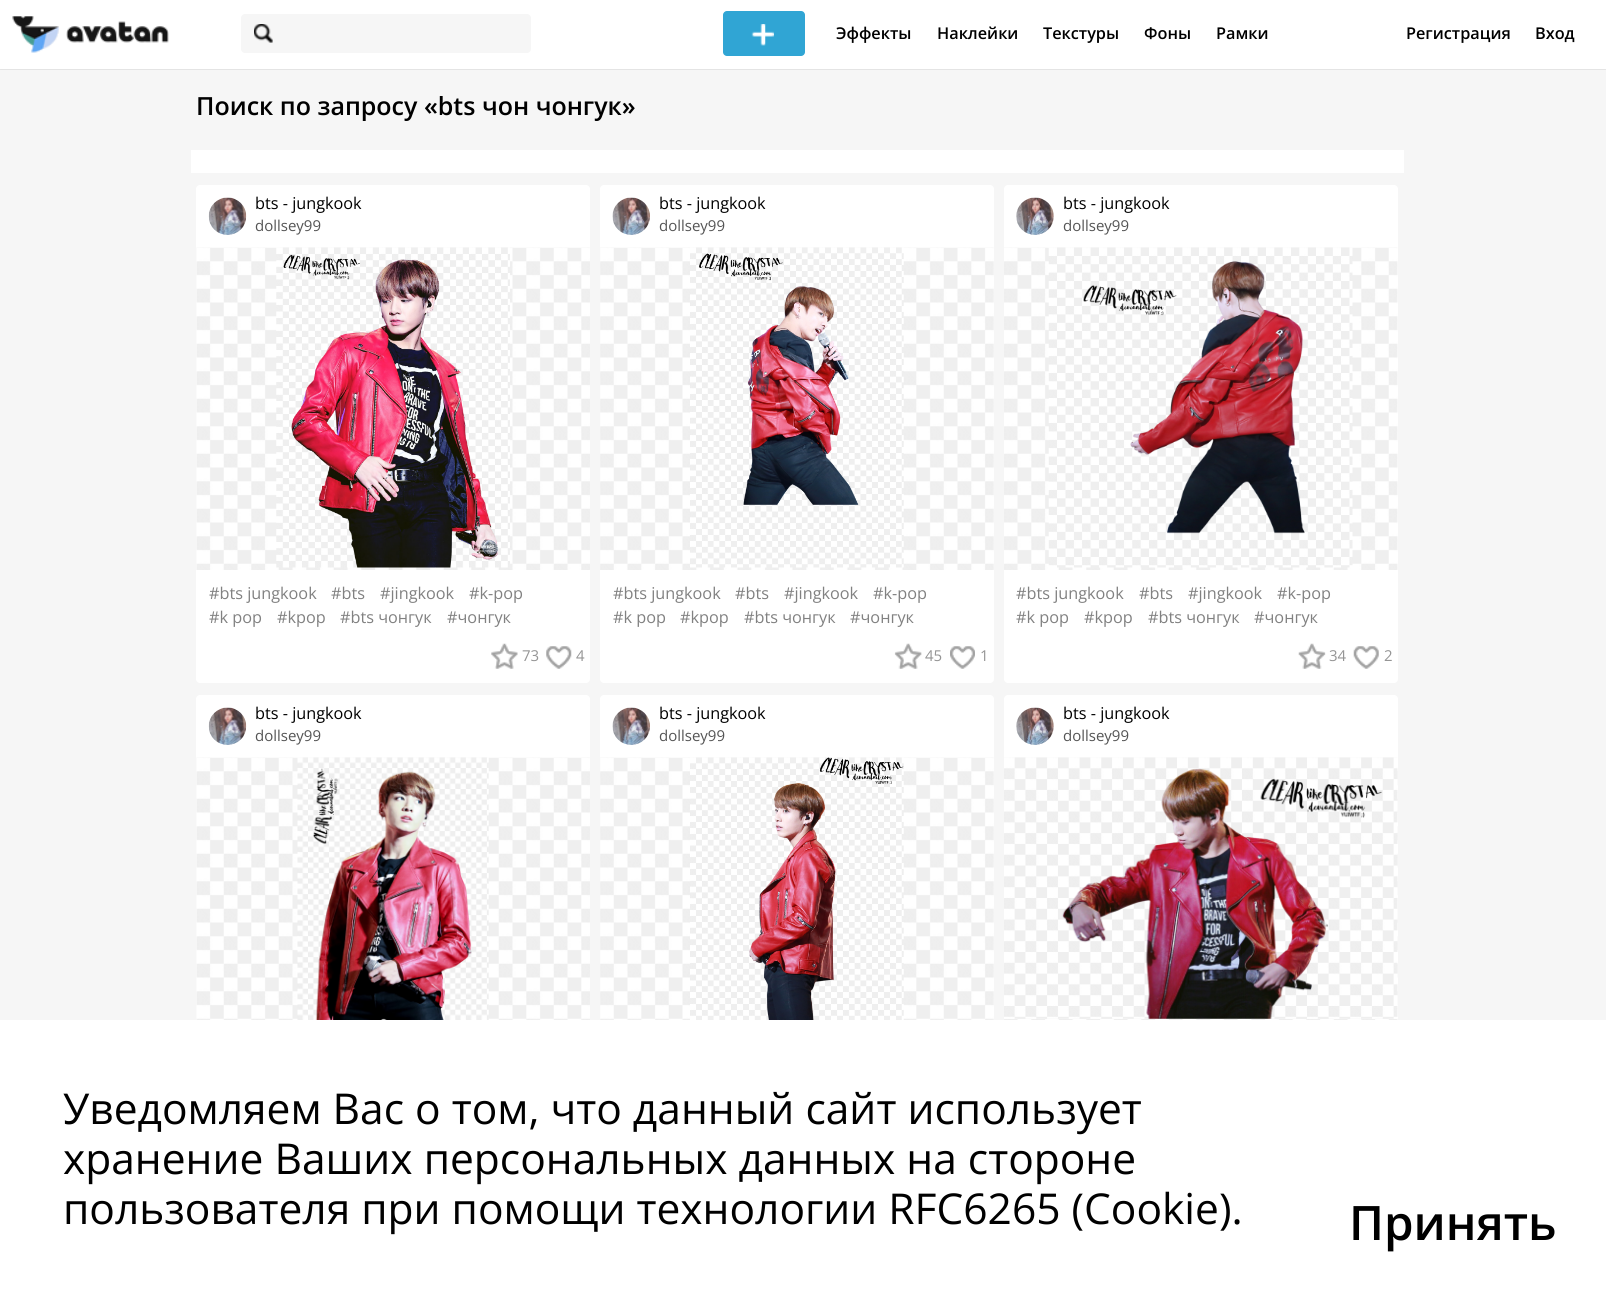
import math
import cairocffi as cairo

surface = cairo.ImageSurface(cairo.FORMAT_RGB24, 1606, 1294)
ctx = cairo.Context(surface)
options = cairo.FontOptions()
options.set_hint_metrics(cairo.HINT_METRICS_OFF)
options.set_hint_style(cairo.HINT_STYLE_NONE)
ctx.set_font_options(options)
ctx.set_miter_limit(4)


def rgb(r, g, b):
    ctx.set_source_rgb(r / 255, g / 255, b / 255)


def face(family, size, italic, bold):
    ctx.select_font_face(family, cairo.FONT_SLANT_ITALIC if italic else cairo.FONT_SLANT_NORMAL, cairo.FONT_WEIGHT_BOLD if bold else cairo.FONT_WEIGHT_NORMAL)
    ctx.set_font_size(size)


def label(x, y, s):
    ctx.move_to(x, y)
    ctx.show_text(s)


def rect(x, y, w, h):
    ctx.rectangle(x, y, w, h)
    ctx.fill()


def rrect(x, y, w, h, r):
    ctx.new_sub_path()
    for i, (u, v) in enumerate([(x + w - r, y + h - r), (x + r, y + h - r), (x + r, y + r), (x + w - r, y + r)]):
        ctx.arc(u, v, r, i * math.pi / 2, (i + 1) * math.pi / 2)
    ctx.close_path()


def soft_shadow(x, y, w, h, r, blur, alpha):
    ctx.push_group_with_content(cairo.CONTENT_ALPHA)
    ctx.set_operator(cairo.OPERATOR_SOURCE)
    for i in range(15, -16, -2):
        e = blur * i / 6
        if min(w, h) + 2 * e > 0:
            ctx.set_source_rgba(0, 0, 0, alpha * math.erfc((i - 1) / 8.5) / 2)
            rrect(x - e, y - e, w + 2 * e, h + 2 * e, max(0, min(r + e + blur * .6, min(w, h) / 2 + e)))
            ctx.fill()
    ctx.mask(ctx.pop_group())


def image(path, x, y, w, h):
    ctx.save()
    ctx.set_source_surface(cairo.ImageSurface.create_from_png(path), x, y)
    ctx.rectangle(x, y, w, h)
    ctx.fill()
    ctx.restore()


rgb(246, 246, 246)
ctx.paint()
rgb(0, 0, 0)
soft_shadow(0, 0, 1606, 69, 0, 0.5, 0.3)
rgb(255, 255, 255)
rect(0, 0, 1606, 69)
image('image0.png', 12, 16, 157, 37)
rgb(246, 246, 246)
rrect(241, 14, 290, 39, 4)
ctx.fill()
image('image1.png', 254, 24, 19, 19)
rgb(48, 165, 212)
rrect(723, 11, 82, 45, 4)
ctx.fill()
image('image2.png', 751, 24, 23, 22)
face('Open Sans SemiBold', 16.25, 0, 0)
rgb(0, 0, 0)
label(836, 39, 'Эффекты')
label(937, 39, 'Наклейки')
label(1043, 39, 'Текстуры')
label(1144, 39, 'Фоны')
label(1216, 39, 'Рамки')
label(1406, 39, 'Регистрация')
label(1535, 39, 'Вход')
face('Open Sans SemiBold', 25, 0, 0)
label(196, 115, 'Поиск по запросу «bts чон чонгук»')
rgb(255, 255, 255)
rect(191, 150, 1213, 23)
rrect(196, 185, 394, 498, 4)
ctx.fill()
image('image3.png', 208, 197, 39, 38)
face('Open Sans', 16.25, 0, 0)
rgb(0, 0, 0)
label(255, 209, 'bts - jungkook')
face('Open Sans', 15, 0, 0)
rgb(85, 85, 85)
label(255, 231, 'dollsey99')
image('image4.png', 196, 247, 394, 323)
image('image5.png', 276, 247, 234, 321)
face('Open Sans', 16.25, 0, 0)
rgb(129, 129, 129)
label(209, 599, '#bts jungkook')
label(331, 599, '#bts')
label(380, 599, '#jingkook')
label(469, 599, '#k-pop')
label(209, 623, '#k pop')
label(277, 623, '#kpop')
label(340, 623, '#bts чонгук')
label(447, 623, '#чонгук')
image('image6.png', 491, 643, 27, 26)
face('Open Sans', 15, 0, 0)
rgb(149, 149, 149)
label(522, 661, '73')
image('image7.png', 546, 646, 26, 23)
label(576, 661, '4')
rgb(255, 255, 255)
rrect(196, 695, 394, 498, 4)
ctx.fill()
image('image3.png', 208, 707, 39, 38)
face('Open Sans', 16.25, 0, 0)
rgb(0, 0, 0)
label(255, 719, 'bts - jungkook')
face('Open Sans', 15, 0, 0)
rgb(85, 85, 85)
label(255, 741, 'dollsey99')
image('image8.png', 196, 757, 394, 263)
image('image9.png', 297, 757, 192, 263)
rgb(255, 255, 255)
rrect(600, 185, 394, 498, 4)
ctx.fill()
image('image10.png', 612, 197, 38, 38)
face('Open Sans', 16.25, 0, 0)
rgb(0, 0, 0)
label(659, 209, 'bts - jungkook')
face('Open Sans', 15, 0, 0)
rgb(85, 85, 85)
label(659, 231, 'dollsey99')
image('image11.png', 600, 247, 394, 323)
image('image12.png', 690, 247, 214, 321)
face('Open Sans', 16.25, 0, 0)
rgb(129, 129, 129)
label(613, 599, '#bts jungkook')
label(735, 599, '#bts')
label(784, 599, '#jingkook')
label(873, 599, '#k-pop')
label(613, 623, '#k pop')
label(680, 623, '#kpop')
label(744, 623, '#bts чонгук')
label(850, 623, '#чонгук')
image('image13.png', 894, 643, 28, 26)
face('Open Sans', 15, 0, 0)
rgb(149, 149, 149)
label(925, 661, '45')
image('image14.png', 950, 646, 25, 23)
label(980, 661, '1')
rgb(255, 255, 255)
rrect(600, 695, 394, 498, 4)
ctx.fill()
image('image10.png', 612, 707, 38, 38)
face('Open Sans', 16.25, 0, 0)
rgb(0, 0, 0)
label(659, 719, 'bts - jungkook')
face('Open Sans', 15, 0, 0)
rgb(85, 85, 85)
label(659, 741, 'dollsey99')
image('image15.png', 600, 757, 394, 263)
image('image16.png', 690, 757, 214, 263)
rgb(255, 255, 255)
rrect(1004, 185, 394, 498, 4)
ctx.fill()
image('image17.png', 1016, 197, 38, 38)
face('Open Sans', 16.25, 0, 0)
rgb(0, 0, 0)
label(1063, 209, 'bts - jungkook')
face('Open Sans', 15, 0, 0)
rgb(85, 85, 85)
label(1063, 231, 'dollsey99')
image('image18.png', 1004, 247, 394, 323)
image('image19.png', 1048, 247, 305, 321)
face('Open Sans', 16.25, 0, 0)
rgb(129, 129, 129)
label(1016, 599, '#bts jungkook')
label(1139, 599, '#bts')
label(1188, 599, '#jingkook')
label(1277, 599, '#k-pop')
label(1016, 623, '#k pop')
label(1084, 623, '#kpop')
label(1148, 623, '#bts чонгук')
label(1254, 623, '#чонгук')
image('image20.png', 1298, 643, 28, 26)
face('Open Sans', 15, 0, 0)
rgb(149, 149, 149)
label(1329, 661, '34')
image('image21.png', 1353, 646, 26, 23)
label(1384, 661, '2')
rgb(255, 255, 255)
rrect(1004, 695, 394, 439, 4)
ctx.fill()
image('image17.png', 1016, 707, 38, 38)
face('Open Sans', 16.25, 0, 0)
rgb(0, 0, 0)
label(1063, 719, 'bts - jungkook')
face('Open Sans', 15, 0, 0)
rgb(85, 85, 85)
label(1063, 741, 'dollsey99')
image('image22.png', 1004, 757, 394, 263)
image('image23.png', 1004, 757, 394, 262)
rgb(255, 255, 255)
rect(0, 1020, 1606, 274)
face('Open Sans', 42.5, 0, 0)
rgb(0, 0, 0)
label(63, 1124, 'Уведомляем Вас о том, что данный сайт использует')
label(63, 1174, 'хранение Ваших персональных данных на стороне')
label(63, 1224, 'пользователя при помощи технологии RFC6265 (Cookie).')
face('Open Sans SemiBold', 47.5, 0, 0)
label(1349, 1240, 'Принять')
surface.write_to_png('render.png')
